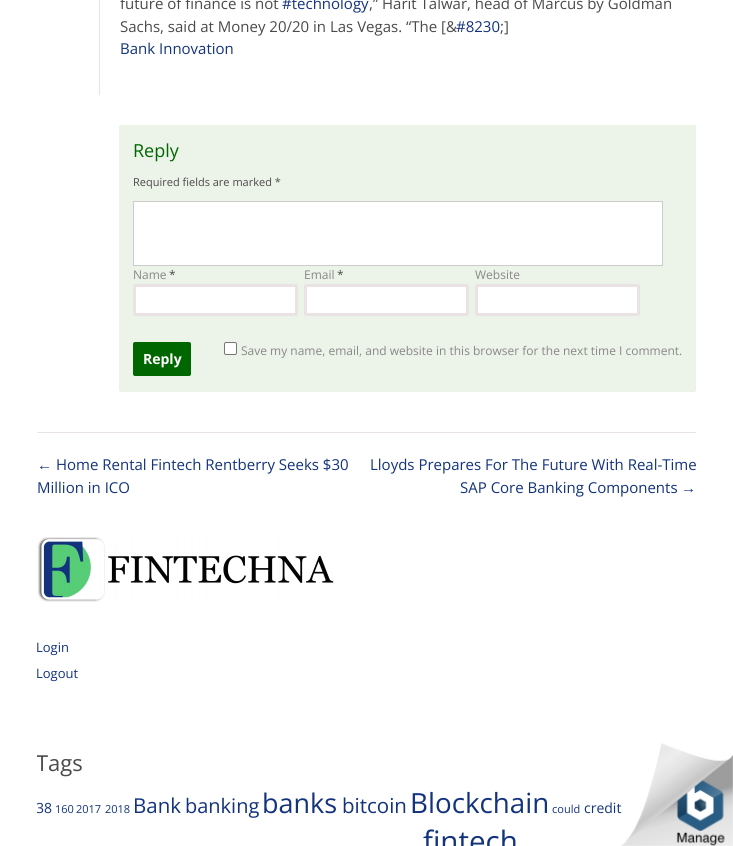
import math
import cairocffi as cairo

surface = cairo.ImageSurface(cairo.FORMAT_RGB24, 733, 846)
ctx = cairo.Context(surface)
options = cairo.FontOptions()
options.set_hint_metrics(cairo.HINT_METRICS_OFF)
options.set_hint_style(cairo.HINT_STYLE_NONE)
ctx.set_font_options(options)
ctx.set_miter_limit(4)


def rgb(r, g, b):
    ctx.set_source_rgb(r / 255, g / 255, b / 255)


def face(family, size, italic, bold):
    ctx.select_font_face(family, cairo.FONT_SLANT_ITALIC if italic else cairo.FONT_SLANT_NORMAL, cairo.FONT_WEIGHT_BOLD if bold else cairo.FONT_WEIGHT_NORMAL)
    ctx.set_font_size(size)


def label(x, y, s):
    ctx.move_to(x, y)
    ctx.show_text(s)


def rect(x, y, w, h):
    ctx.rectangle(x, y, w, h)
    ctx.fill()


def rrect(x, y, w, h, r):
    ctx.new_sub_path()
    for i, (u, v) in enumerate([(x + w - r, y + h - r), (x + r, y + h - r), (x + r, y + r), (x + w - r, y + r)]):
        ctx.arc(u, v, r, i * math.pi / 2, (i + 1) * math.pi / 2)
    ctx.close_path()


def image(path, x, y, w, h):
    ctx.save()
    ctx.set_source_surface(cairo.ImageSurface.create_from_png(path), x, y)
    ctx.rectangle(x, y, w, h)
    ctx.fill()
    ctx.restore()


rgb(255, 255, 255)
ctx.paint()
rgb(233, 227, 227)
rect(99, 0, 1, 95)
face('Open Sans', 15, 0, 0)
rgb(75, 74, 74)
label(120, 9, 'future of finance is not')
rgb(19, 51, 125)
label(282, 9, '#technology')
rgb(75, 74, 74)
label(369, 9, ',” Harit Talwar, head of Marcus by Goldman')
label(120, 32, 'Sachs, said at Money 20/20 in Las Vegas. “The [&')
rgb(19, 51, 125)
label(456, 32, '#8230')
rgb(75, 74, 74)
label(500, 32, ';]')
rgb(19, 51, 125)
label(120, 54, 'Bank Innovation')
rgb(236, 243, 232)
rrect(119, 125, 577, 267, 2)
ctx.fill()
face('Open Sans', 18, 0, 0)
rgb(0, 102, 0)
label(133, 157, 'Reply')
face('Open Sans', 11, 0, 0)
rgb(75, 74, 74)
label(133, 186, 'Required fields are marked *')
rgb(255, 255, 255)
ctx.rectangle(133.5, 201.5, 529, 64)
ctx.fill_preserve()
rgb(204, 204, 204)
ctx.set_line_width(1)
ctx.stroke()
face('Open Sans', 12, 0, 0)
rgb(136, 136, 136)
label(133, 279, 'Name')
rgb(75, 74, 74)
label(169, 279, '*')
rgb(255, 255, 255)
rrect(134.5, 285.5, 162, 29, 0.5)
ctx.fill_preserve()
rgb(233, 227, 227)
ctx.set_line_width(3)
ctx.stroke()
rgb(136, 136, 136)
label(304, 279, 'Email')
rgb(75, 74, 74)
label(337, 279, '*')
rgb(255, 255, 255)
rrect(305.5, 285.5, 162, 29, 0.5)
ctx.fill_preserve()
rgb(233, 227, 227)
ctx.stroke()
rgb(136, 136, 136)
label(475, 279, 'Website')
rgb(255, 255, 255)
rrect(476.5, 285.5, 162, 29, 0.5)
ctx.fill_preserve()
rgb(233, 227, 227)
ctx.stroke()
rgb(255, 255, 255)
rrect(224.5, 342.5, 12, 12, 1.5)
ctx.fill_preserve()
rgb(118, 118, 118)
ctx.set_line_width(1)
ctx.stroke()
rgb(136, 136, 136)
label(241, 355, 'Save my name, email, and website in this browser for the next time I comment.')
rgb(0, 102, 0)
rrect(133, 342, 58, 34, 2)
ctx.fill()
face('Open Sans', 14, 0, 1)
rgb(255, 255, 255)
label(143, 364, 'Reply')
rgb(233, 227, 227)
rect(37, 432, 659, 1)
face('Liberation Sans', 15, 0, 0)
rgb(19, 51, 125)
label(37, 470, '←')
face('Open Sans', 15, 0, 0)
label(56, 470, 'Home Rental Fintech Rentberry Seeks $30')
label(37, 493, 'Million in ICO')
label(370, 470, 'Lloyds Prepares For The Future With Real-Time')
label(460, 493, 'SAP Core Banking Components')
face('Liberation Sans', 15, 0, 0)
label(681, 493, '→')
image('image0.png', 37, 537, 297, 65)
ctx.save()
ctx.rectangle(37, 630, 659, 80)
ctx.clip()
face('Open Sans', 13, 0, 0)
label(36, 652, 'Login')
label(36, 678, 'Logout')
ctx.restore()
ctx.save()
ctx.rectangle(37, 738, 659, 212)
ctx.clip()
face('Open Sans', 22, 0, 0)
rgb(75, 74, 74)
label(36, 771, 'Tags')
face('Open Sans', 14, 0, 0)
rgb(19, 51, 125)
label(36, 813, '38')
ctx.restore()
face('Open Sans', 11, 0, 0)
label(55, 813, '160')
label(76, 813, '2017')
label(105, 813, '2018')
face('Open Sans', 20.5, 0, 0)
label(133, 813, 'Bank')
face('Open Sans', 20, 0, 0)
label(185, 813, 'banking')
face('Open Sans', 27, 0, 0)
label(262, 813, 'banks')
face('Open Sans', 20.5, 0, 0)
label(342, 813, 'bitcoin')
face('Open Sans', 27.75, 0, 0)
label(410, 813, 'Blockchain')
face('Open Sans', 11, 0, 0)
label(552, 813, 'could')
face('Open Sans', 14, 0, 0)
label(584, 813, 'credit')
face('Open Sans', 29.5, 0, 0)
label(423, 852, 'fintech')
image('image1.png', 621, 743, 112, 103)
surface.write_to_png('render.png')
